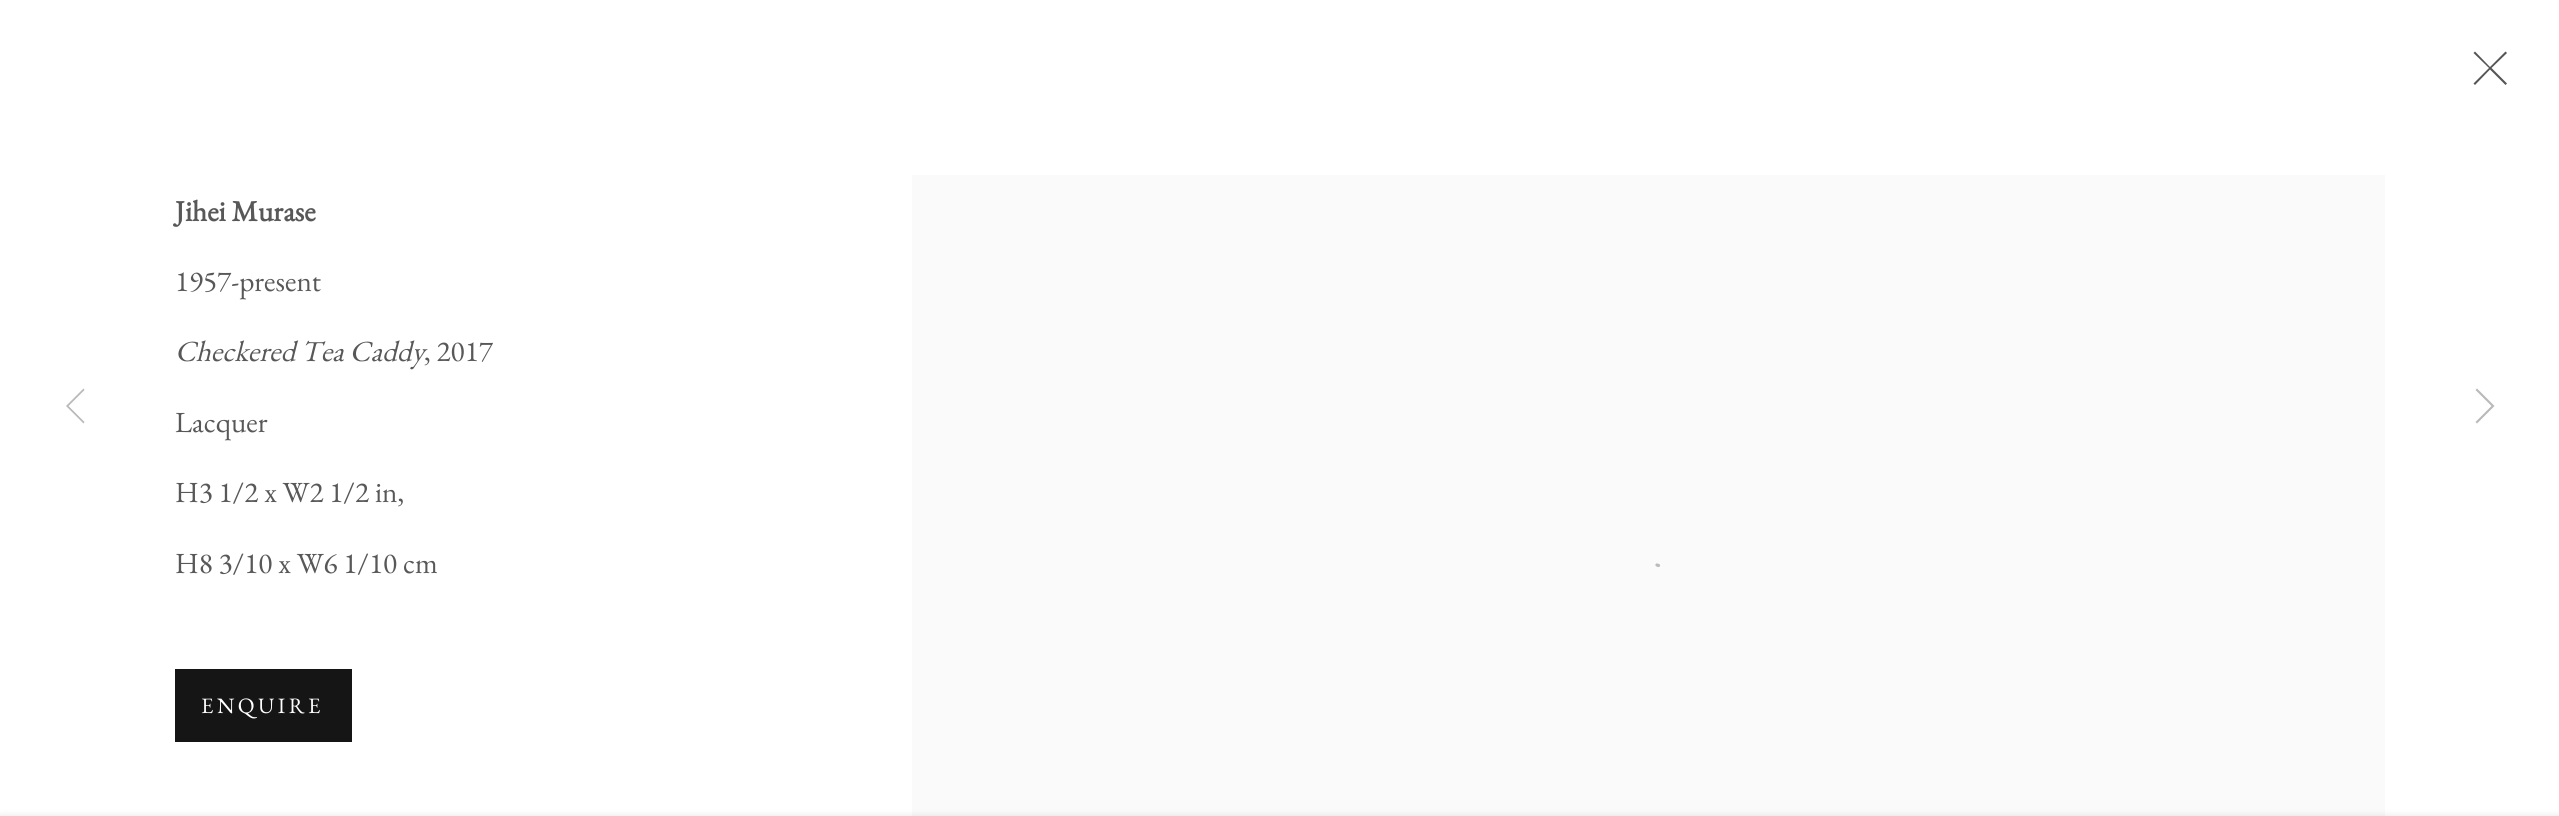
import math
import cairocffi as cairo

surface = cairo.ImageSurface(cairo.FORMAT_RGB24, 2559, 816)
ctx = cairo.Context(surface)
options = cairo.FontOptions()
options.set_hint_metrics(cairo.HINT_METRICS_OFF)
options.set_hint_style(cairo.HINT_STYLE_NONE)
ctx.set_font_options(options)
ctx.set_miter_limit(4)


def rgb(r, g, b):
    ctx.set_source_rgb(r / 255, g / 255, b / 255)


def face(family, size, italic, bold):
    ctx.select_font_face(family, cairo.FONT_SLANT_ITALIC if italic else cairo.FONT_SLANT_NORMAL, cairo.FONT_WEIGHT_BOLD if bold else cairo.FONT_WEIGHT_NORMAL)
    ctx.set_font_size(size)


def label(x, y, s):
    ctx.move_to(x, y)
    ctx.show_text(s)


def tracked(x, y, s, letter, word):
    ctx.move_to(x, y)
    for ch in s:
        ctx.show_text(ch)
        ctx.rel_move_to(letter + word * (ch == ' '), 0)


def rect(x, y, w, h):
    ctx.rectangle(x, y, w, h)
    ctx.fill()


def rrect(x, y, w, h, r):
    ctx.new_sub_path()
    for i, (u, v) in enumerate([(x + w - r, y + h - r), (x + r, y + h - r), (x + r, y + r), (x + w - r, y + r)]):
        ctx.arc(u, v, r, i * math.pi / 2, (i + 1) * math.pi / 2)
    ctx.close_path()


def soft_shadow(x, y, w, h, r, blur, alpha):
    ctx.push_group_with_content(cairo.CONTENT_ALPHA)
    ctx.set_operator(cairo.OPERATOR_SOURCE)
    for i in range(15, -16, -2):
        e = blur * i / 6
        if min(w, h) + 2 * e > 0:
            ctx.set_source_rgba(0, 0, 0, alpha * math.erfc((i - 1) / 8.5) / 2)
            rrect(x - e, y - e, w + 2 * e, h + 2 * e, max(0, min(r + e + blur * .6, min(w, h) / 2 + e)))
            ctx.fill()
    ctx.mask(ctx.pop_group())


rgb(255, 255, 255)
ctx.paint()
rgb(85, 85, 85)
ctx.new_path()
ctx.move_to(2507, 53)
ctx.line_to(2505.5, 51.5)
ctx.line_to(2490, 67)
ctx.line_to(2475, 51.5)
ctx.line_to(2473.5, 53)
ctx.line_to(2489, 68)
ctx.line_to(2473.5, 83.5)
ctx.line_to(2475, 85)
ctx.line_to(2490, 69.5)
ctx.line_to(2505.5, 85)
ctx.line_to(2507, 83.5)
ctx.line_to(2491.5, 68)
ctx.close_path()
ctx.fill()
face('EB Garamond', 29.25, 0, 1)
rgb(88, 88, 88)
label(175, 221, 'Jihei Murase')
face('EB Garamond', 29.25, 0, 0)
label(175, 291, '1957-present')
face('EB Garamond', 29.25, 1, 0)
label(175, 361, 'Checkered Tea Caddy')
face('EB Garamond', 29.25, 0, 0)
label(424, 361, ', 2017')
label(175, 432, 'Lacquer')
label(175, 502, 'H3 1/2 x W2 1/2 in,')
label(175, 573, 'H8 3/10 x W6 1/10 cm')
rgb(21, 21, 21)
rect(175, 669, 177, 73)
face('EB Garamond', 22, 0, 0)
rgb(255, 255, 255)
tracked(201, 713, 'ENQUIRE', 3.5, 0)
rgb(250, 250, 250)
rect(912, 175, 1473, 641)
ctx.new_path()
ctx.move_to(1657, 565)
ctx.line_to(1658.5, 565.5)
rgb(187, 187, 187)
ctx.set_line_width(3.2)
ctx.set_line_cap(cairo.LINE_CAP_ROUND)
ctx.stroke()
rgb(185, 185, 185)
ctx.new_path()
ctx.move_to(67.5, 407.5)
ctx.line_to(83.5, 423.5)
ctx.line_to(84.5, 422)
ctx.line_to(68.5, 406)
ctx.line_to(84.5, 390)
ctx.line_to(83.5, 388.5)
ctx.line_to(66, 406)
ctx.close_path()
ctx.fill()
ctx.new_path()
ctx.move_to(2494.5, 406)
ctx.line_to(2477, 388.5)
ctx.line_to(2475.5, 390)
ctx.line_to(2491.5, 406)
ctx.line_to(2475.5, 422)
ctx.line_to(2477, 423.5)
ctx.close_path()
ctx.fill()
rgb(0, 0, 0)
soft_shadow(0, 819, 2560, 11, 0, 4.5, 0.23)
surface.write_to_png('render.png')
